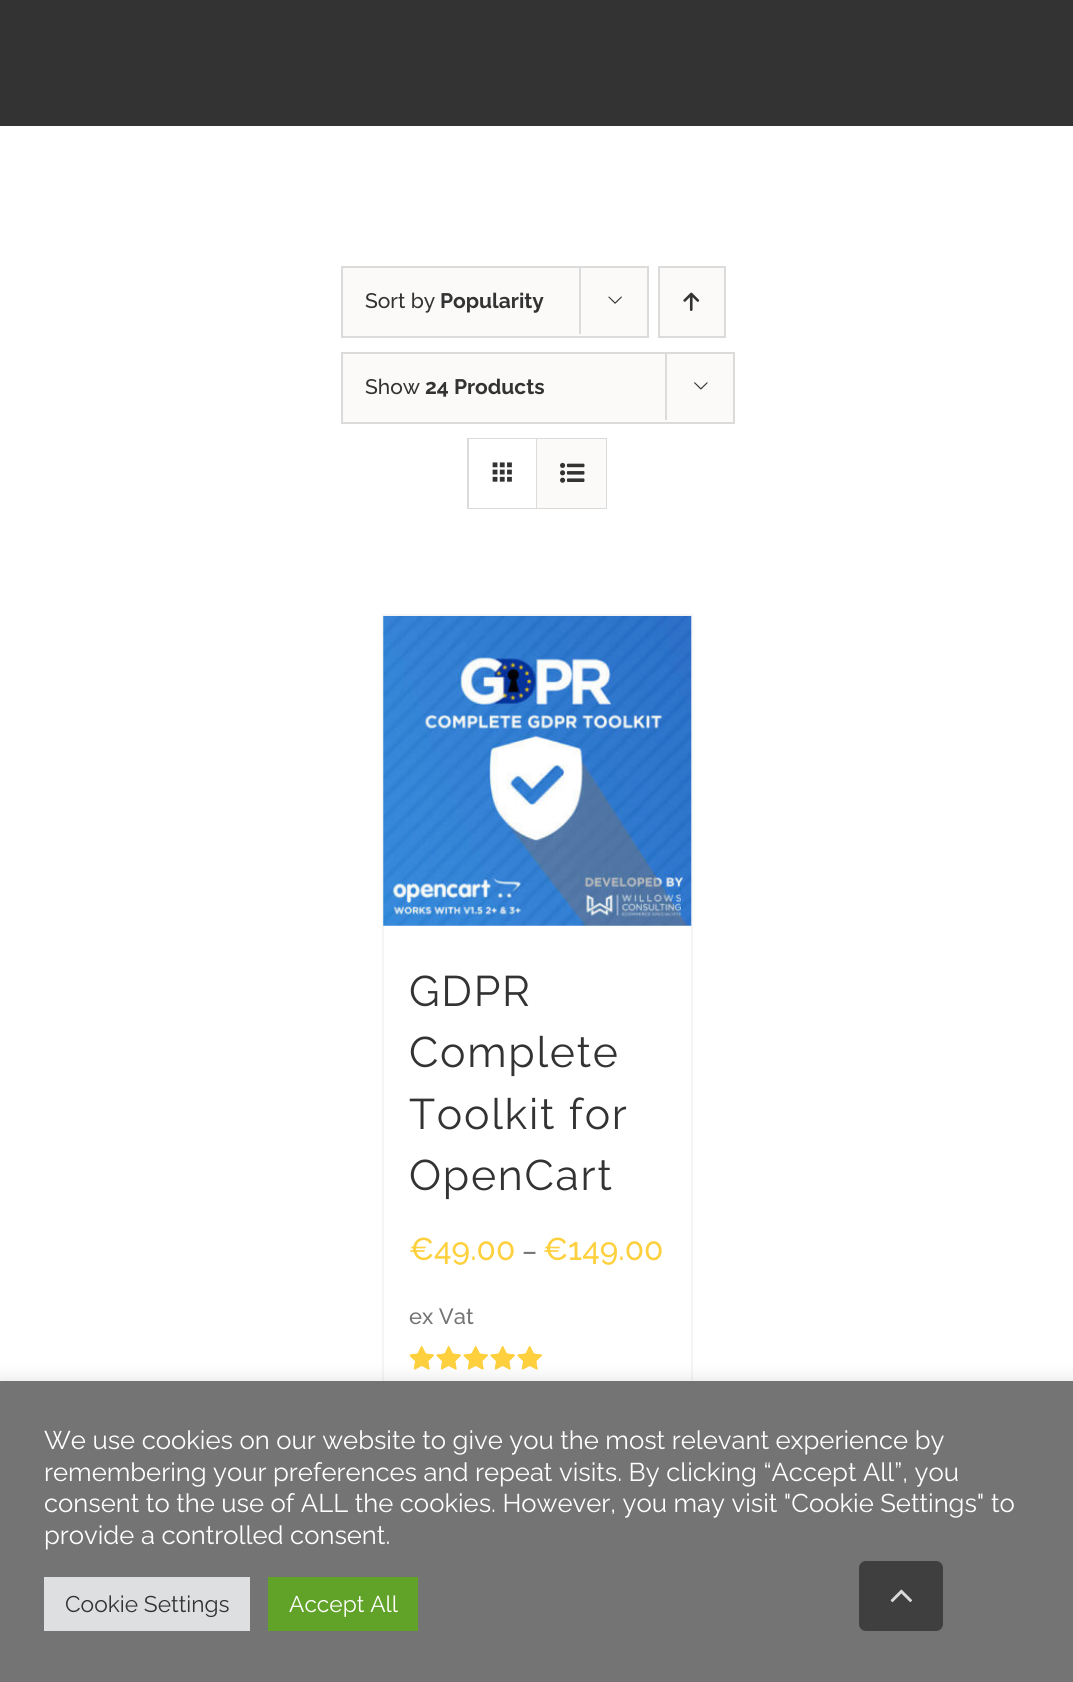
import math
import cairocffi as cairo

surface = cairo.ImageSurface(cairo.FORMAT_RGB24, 1073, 1682)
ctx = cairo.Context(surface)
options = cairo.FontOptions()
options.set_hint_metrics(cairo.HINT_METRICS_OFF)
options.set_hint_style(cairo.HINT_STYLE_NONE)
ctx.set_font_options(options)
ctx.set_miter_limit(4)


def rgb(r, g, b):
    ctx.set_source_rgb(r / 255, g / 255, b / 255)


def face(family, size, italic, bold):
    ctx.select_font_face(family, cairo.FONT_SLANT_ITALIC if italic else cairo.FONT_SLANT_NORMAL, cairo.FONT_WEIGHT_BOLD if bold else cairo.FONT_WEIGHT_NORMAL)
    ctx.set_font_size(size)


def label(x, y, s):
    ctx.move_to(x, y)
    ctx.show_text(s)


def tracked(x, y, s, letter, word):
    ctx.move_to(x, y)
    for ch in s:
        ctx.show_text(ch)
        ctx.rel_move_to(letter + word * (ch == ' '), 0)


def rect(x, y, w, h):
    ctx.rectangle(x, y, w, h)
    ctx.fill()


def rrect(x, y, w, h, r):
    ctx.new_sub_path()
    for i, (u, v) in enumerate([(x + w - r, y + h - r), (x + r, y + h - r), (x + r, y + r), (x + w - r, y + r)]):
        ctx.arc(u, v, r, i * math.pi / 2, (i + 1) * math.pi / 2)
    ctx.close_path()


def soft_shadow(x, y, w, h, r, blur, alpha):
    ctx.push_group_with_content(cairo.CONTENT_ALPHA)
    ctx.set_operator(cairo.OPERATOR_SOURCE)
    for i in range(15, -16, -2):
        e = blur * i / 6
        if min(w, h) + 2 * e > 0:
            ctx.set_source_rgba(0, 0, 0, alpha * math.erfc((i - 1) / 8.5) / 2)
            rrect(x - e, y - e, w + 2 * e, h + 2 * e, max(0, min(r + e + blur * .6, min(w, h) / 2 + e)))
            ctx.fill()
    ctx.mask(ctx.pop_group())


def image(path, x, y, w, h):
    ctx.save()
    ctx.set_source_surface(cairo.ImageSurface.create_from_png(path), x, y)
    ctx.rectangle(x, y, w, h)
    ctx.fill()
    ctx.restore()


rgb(255, 255, 255)
ctx.paint()
rgb(51, 51, 51)
rect(0, 0, 1073, 126)
rgb(251, 250, 249)
ctx.rectangle(342, 267, 306, 70)
ctx.fill_preserve()
rgb(219, 219, 219)
ctx.stroke()
face('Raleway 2 Thin', 21, 0, 0)
rgb(51, 51, 51)
label(365, 308, 'Sort by')
face('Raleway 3 Thin', 21, 0, 0)
label(440, 308, 'Popularity')
rgb(219, 219, 219)
rect(579, 266, 2, 68)
image('image0.png', 608, 296, 14, 8)
rgb(251, 250, 249)
ctx.rectangle(659, 267, 66, 70)
ctx.fill_preserve()
rgb(219, 219, 219)
ctx.stroke()
image('image1.png', 683, 292, 17, 19)
rgb(251, 250, 249)
ctx.rectangle(342, 353, 392, 70)
ctx.fill_preserve()
rgb(219, 219, 219)
ctx.stroke()
face('Raleway 2 Thin', 21, 0, 0)
rgb(51, 51, 51)
label(365, 394, 'Show')
face('Raleway 3 Thin', 21, 0, 0)
label(425, 394, '24 Products')
rgb(219, 219, 219)
rect(665, 352, 2, 68)
image('image2.png', 694, 382, 14, 8)
ctx.rectangle(468, 439, 138, 69)
ctx.stroke()
rgb(255, 255, 255)
rect(469, 439, 67, 69)
rgb(219, 219, 219)
rect(536, 439, 1, 69)
image('image3.png', 492, 462, 20, 20)
rgb(251, 250, 249)
rect(537, 439, 69, 69)
image('image4.png', 560, 462, 25, 21)
rgb(245, 245, 245)
rect(382, 614, 311, 2)
rect(691, 614, 2, 767)
rect(382, 614, 2, 767)
image('image5.png', 383, 616, 309, 310)
face('Raleway Thin', 42.75, 0, 0)
rgb(51, 51, 51)
tracked(409, 1006, 'GDPR', 1.75, 0)
tracked(409, 1067, 'Complete', 1.75, 0)
tracked(409, 1129, 'Toolkit for', 1.75, 0)
tracked(409, 1190, 'OpenCart', 1.75, 0)
face('Raleway 2 Thin', 31.5, 0, 0)
rgb(254, 208, 61)
label(409, 1260, '€49.00')
face('Raleway 2 Thin', 26, 0, 0)
rgb(116, 116, 116)
label(522, 1260, '–')
face('Raleway 2 Thin', 31.5, 0, 0)
rgb(254, 208, 61)
label(543, 1260, '€149.00')
face('Raleway 2 Thin', 22, 0, 0)
rgb(116, 116, 116)
label(409, 1324, 'ex Vat')
image('image6.png', 410, 1346, 132, 24)
image('image7.png', 410, 1346, 132, 24)
rgb(172, 171, 171)
soft_shadow(0, 1379, 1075, 303, 0, 9, 0.3)
rgb(116, 116, 116)
rect(0, 1381, 1073, 301)
face('Raleway Thin', 25.65, 0, 0)
rgb(255, 255, 255)
label(44, 1449, 'We use cookies on our website to give you the most relevant experience by')
label(44, 1481, 'remembering your preferences and repeat visits. By clicking “Accept All”, you')
label(44, 1512, 'consent to the use of ALL the cookies. However, you may visit "Cookie Settings" to')
label(44, 1544, 'provide a controlled consent.')
rgb(222, 223, 224)
rect(44, 1577, 206, 54)
face('Raleway Thin', 22.75, 0, 0)
rgb(51, 51, 51)
label(65, 1612, 'Cookie Settings')
rgb(97, 162, 41)
rect(268, 1577, 150, 54)
rgb(255, 255, 255)
label(289, 1612, 'Accept All')
rgb(63, 63, 63)
rrect(859, 1561, 84, 70, 7)
ctx.fill()
image('image8.png', 890, 1589, 22, 14)
surface.write_to_png('render.png')
